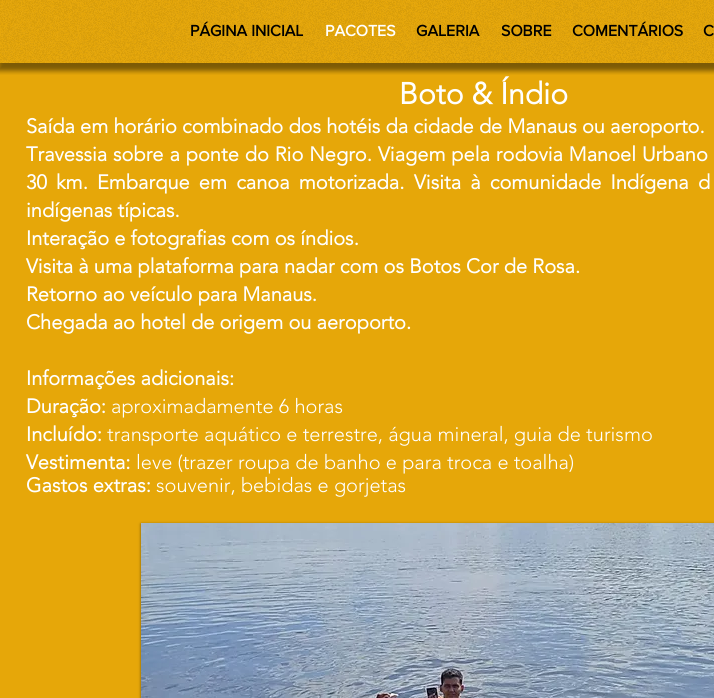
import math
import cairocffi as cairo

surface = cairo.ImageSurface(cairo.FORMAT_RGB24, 714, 698)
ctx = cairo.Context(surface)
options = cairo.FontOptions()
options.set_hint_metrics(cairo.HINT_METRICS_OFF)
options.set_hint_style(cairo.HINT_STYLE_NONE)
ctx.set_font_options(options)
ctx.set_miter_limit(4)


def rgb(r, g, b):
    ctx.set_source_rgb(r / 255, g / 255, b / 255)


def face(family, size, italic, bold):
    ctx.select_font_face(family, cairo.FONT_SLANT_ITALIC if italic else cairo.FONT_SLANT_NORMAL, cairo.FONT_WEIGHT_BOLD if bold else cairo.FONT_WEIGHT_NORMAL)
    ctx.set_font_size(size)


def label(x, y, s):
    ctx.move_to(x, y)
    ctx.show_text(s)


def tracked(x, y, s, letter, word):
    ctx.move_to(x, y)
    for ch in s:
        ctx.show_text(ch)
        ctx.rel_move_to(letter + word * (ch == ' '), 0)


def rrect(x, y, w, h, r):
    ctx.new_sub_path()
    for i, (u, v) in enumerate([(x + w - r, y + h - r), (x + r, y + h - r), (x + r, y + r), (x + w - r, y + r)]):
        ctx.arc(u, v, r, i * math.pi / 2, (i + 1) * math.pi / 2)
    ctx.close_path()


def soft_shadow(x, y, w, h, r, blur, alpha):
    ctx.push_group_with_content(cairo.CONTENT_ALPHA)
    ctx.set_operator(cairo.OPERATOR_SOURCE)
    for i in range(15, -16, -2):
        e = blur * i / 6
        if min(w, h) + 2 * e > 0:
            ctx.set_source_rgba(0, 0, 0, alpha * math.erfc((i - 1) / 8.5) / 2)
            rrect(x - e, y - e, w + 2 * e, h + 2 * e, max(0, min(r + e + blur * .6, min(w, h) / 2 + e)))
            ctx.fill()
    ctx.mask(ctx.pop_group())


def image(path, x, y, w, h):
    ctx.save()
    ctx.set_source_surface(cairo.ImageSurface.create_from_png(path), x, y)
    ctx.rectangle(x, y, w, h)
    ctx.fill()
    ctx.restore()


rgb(230, 167, 9)
ctx.paint()
ctx.save()
ctx.rectangle(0, 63, 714, 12)
ctx.clip()
rgb(0, 0, 0)
soft_shadow(-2, 4, 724, 67, 0, 2.5, 0.46)
ctx.restore()
image('image0.png', 0, 0, 714, 63)
face('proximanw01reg', 16, 0, 1)
rgb(0, 0, 0)
label(190, 36, 'PÁGINA INICIAL')
rgb(255, 255, 255)
label(325, 36, 'PACOTES')
rgb(0, 0, 0)
label(416, 36, 'GALERIA')
label(501, 36, 'SOBRE')
label(572, 36, 'COMENTÁRIOS')
label(703, 36, 'C')
face('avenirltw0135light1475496', 30, 0, 1)
rgb(255, 255, 255)
label(399, 104, 'Boto & Índio')
face('avenirltw0135light1475496', 20, 0, 1)
label(26, 133, 'Saída em horário combinado dos hotéis da cidade de Manaus ou aeroporto.')
tracked(26, 161, 'Travessia sobre a ponte do Rio Negro.', 0, 0.75)
tracked(378, 161, 'Viagem pela rodovia Manoel Urbano', 0, 0.75)
tracked(26, 189, '30 km.', 0, 4)
tracked(97, 189, 'Embarque em canoa motorizada.', 0, 4)
tracked(414, 189, 'Visita à comunidade Indígena d', 0, 4)
label(26, 217, 'indígenas típicas.')
label(26, 245, 'Interação e fotografias com os índios.')
label(26, 273, 'Visita à uma plataforma para nadar com os Botos Cor de Rosa.')
label(26, 301, 'Retorno ao veículo para Manaus.')
label(26, 329, 'Chegada ao hotel de origem ou aeroporto.')
label(26, 385, 'Informações adicionais:')
label(26, 413, 'Duração:')
face('avenirltw0135light1475496 Light', 20, 0, 0)
label(111, 413, 'aproximadamente 6 horas')
face('avenirltw0135light1475496', 20, 0, 1)
label(26, 441, 'Incluído:')
face('avenirltw0135light1475496 Light', 20, 0, 0)
label(107, 441, 'transporte aquático e terrestre, água mineral, guia de turismo')
face('avenirltw0135light1475496', 20, 0, 1)
label(26, 469, 'Vestimenta:')
face('avenirltw0135light1475496 Light', 20, 0, 0)
label(136, 469, 'leve (trazer roupa de banho e para troca e toalha)')
face('avenirltw0135light1475496', 20, 0, 1)
label(26, 492, 'Gastos extras:')
face('avenirltw0135light1475496 Light', 20, 0, 0)
label(156, 492, 'souvenir, bebidas e gorjetas')
rgb(0, 0, 0)
soft_shadow(141, 524, 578, 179, 0, 1.5, 0.5)
image('image1.png', 141, 523, 573, 175)
surface.write_to_png('render.png')
